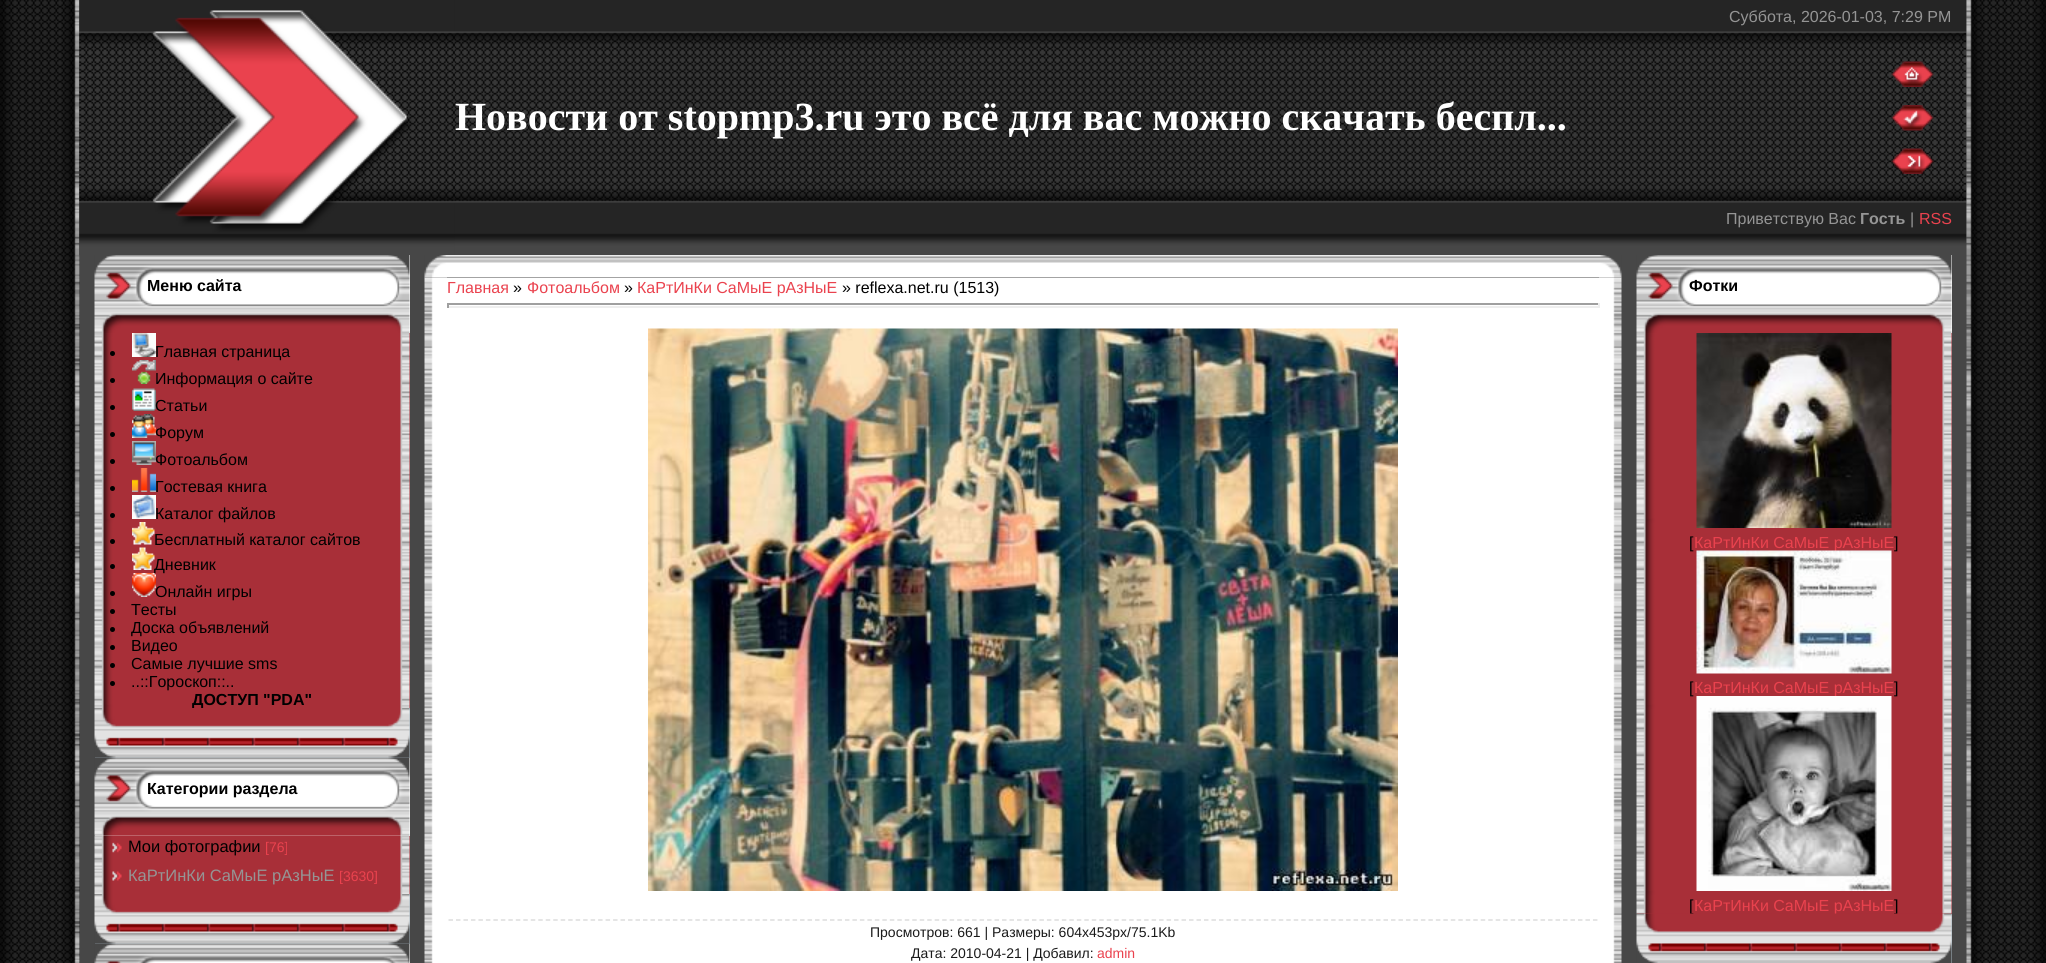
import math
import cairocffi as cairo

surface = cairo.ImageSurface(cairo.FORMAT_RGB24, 2046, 963)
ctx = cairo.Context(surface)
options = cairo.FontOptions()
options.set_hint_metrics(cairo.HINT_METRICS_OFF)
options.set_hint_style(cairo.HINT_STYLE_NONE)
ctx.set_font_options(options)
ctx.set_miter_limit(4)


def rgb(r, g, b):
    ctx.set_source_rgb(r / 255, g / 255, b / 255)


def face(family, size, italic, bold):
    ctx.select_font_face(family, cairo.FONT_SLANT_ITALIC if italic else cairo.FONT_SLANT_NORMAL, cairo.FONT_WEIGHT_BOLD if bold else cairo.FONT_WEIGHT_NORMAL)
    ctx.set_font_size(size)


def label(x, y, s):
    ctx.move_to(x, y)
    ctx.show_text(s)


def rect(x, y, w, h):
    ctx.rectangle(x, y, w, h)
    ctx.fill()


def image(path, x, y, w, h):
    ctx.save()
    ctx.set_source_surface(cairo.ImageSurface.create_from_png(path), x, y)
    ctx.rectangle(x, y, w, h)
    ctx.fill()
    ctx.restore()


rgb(71, 71, 71)
ctx.paint()
rgb(37, 37, 37)
rect(79, 0, 1, 963)
image('image0.png', 0, 0, 80, 963)
image('image1.png', 79, 0, 1888, 255)
image('image2.png', 79, 0, 376, 255)
face('Liberation Sans', 16, 0, 0)
rgb(149, 149, 149)
label(1729, 22, 'Суббота, 2026-01-03, 7:29 PM')
face('Liberation Serif', 40, 0, 1)
rgb(255, 255, 255)
label(455, 130, 'Новости от stopmp3.ru это всё для вас можно скачать беспл...')
image('image3.png', 1891, 61, 43, 26)
image('image4.png', 1891, 105, 43, 26)
image('image5.png', 1891, 148, 43, 26)
face('Liberation Sans', 16, 0, 0)
rgb(149, 149, 149)
label(1726, 224, 'Приветствую Вас')
face('Liberation Sans', 16, 0, 1)
label(1860, 224, 'Гость')
face('Liberation Sans', 16, 0, 0)
label(1910, 224, '|')
rgb(234, 66, 78)
label(1919, 224, 'RSS')
rgb(169, 184, 194)
rect(95, 708, 315, 50)
rgb(255, 255, 255)
rect(409, 255, 1, 78)
image('image6.png', 94, 255, 316, 78)
face('Liberation Sans', 16, 0, 1)
rgb(0, 0, 0)
label(147, 291, 'Меню сайта')
rgb(168, 47, 56)
rect(409, 333, 1, 375)
image('image7.png', 94, 333, 316, 375)
rgb(0, 0, 0)
ctx.arc(112.5, 353.5, 2.5, 0, 2 * math.pi)
ctx.fill()
image('image8.png', 132, 333, 24, 24)
face('Liberation Sans', 16, 0, 0)
label(155, 357, 'Главная страница')
ctx.new_path()
ctx.arc(112.5, 380.5, 2.5, 0, 2 * math.pi)
ctx.fill()
image('image9.png', 132, 360, 24, 24)
label(155, 384, 'Информация о сайте')
ctx.new_path()
ctx.arc(112.5, 407.5, 2.5, 0, 2 * math.pi)
ctx.fill()
image('image10.png', 132, 388, 24, 23)
label(155, 411, 'Статьи')
ctx.new_path()
ctx.arc(112.5, 434.5, 2.5, 0, 2 * math.pi)
ctx.fill()
image('image11.png', 132, 414, 24, 24)
label(155, 438, 'Форум')
ctx.new_path()
ctx.arc(112.5, 461.5, 2.5, 0, 2 * math.pi)
ctx.fill()
image('image12.png', 132, 441, 24, 24)
label(155, 465, 'Фотоальбом')
ctx.new_path()
ctx.arc(112.5, 488.5, 2.5, 0, 2 * math.pi)
ctx.fill()
image('image13.png', 132, 468, 24, 24)
label(155, 492, 'Гостевая книга')
ctx.new_path()
ctx.arc(112.5, 515.5, 2.5, 0, 2 * math.pi)
ctx.fill()
image('image14.png', 132, 495, 24, 24)
label(155, 519, 'Каталог файлов')
ctx.new_path()
ctx.arc(112.5, 541.5, 2.5, 0, 2 * math.pi)
ctx.fill()
image('image15.png', 132, 522, 23, 23)
label(154, 545, 'Бесплатный каталог сайтов')
ctx.new_path()
ctx.arc(112.5, 566.5, 2.5, 0, 2 * math.pi)
ctx.fill()
image('image16.png', 132, 547, 23, 23)
label(154, 570, 'Дневник')
ctx.new_path()
ctx.arc(112.5, 593.5, 2.5, 0, 2 * math.pi)
ctx.fill()
image('image17.png', 132, 573, 24, 24)
label(155, 597, 'Онлайн игры')
ctx.new_path()
ctx.arc(112.5, 611.5, 2.5, 0, 2 * math.pi)
ctx.fill()
label(131, 615, 'Тесты')
ctx.new_path()
ctx.arc(112.5, 629.5, 2.5, 0, 2 * math.pi)
ctx.fill()
label(131, 633, 'Доска объявлений')
ctx.new_path()
ctx.arc(112.5, 647.5, 2.5, 0, 2 * math.pi)
ctx.fill()
label(131, 651, 'Видео')
ctx.new_path()
ctx.arc(112.5, 665.5, 2.5, 0, 2 * math.pi)
ctx.fill()
label(131, 669, 'Самые лучшие sms')
ctx.new_path()
ctx.arc(112.5, 683.5, 2.5, 0, 2 * math.pi)
ctx.fill()
label(131, 687, '..::Гороскоп::..')
face('Liberation Sans', 16, 0, 1)
label(192, 705, 'ДОСТУП "PDA"')
rgb(255, 255, 255)
rect(95, 758, 315, 78)
image('image19.png', 94, 757, 316, 79)
image('image18.png', 94, 708, 316, 50)
rgb(169, 184, 194)
rect(95, 894, 315, 50)
rgb(0, 0, 0)
label(147, 794, 'Категории раздела')
rgb(168, 47, 56)
rect(409, 836, 1, 58)
image('image20.png', 94, 835, 316, 59)
image('image21.png', 112, 842, 10, 11)
face('Liberation Sans', 16.5, 0, 0)
rgb(0, 0, 0)
label(128, 852, 'Мои фотографии')
face('Liberation Sans', 14, 0, 0)
rgb(234, 66, 78)
label(265, 852, '[76]')
image('image22.png', 112, 871, 10, 10)
face('Liberation Sans', 16.5, 0, 0)
rgb(149, 149, 149)
label(128, 881, 'КаРтИнКи СаМыЕ рАзНыЕ')
face('Liberation Sans', 14, 0, 0)
rgb(234, 66, 78)
label(339, 881, '[3630]')
rgb(255, 255, 255)
rect(409, 944, 1, 19)
image('image23.png', 94, 943, 316, 20)
image('image18.png', 94, 894, 316, 50)
image('image27.png', 424, 277, 23, 686)
image('image24.png', 424, 255, 23, 23)
image('image25.png', 447, 255, 1152, 23)
image('image29.png', 1599, 277, 23, 686)
image('image26.png', 1599, 255, 23, 23)
rect(447, 278, 1152, 685)
face('Liberation Sans', 16, 0, 0)
rgb(234, 66, 78)
label(447, 293, 'Главная')
rgb(0, 0, 0)
label(513, 293, '»')
rgb(234, 66, 78)
label(527, 293, 'Фотоальбом')
rgb(0, 0, 0)
label(624, 293, '»')
rgb(234, 66, 78)
label(637, 293, 'КаРтИнКи СаМыЕ рАзНыЕ')
rgb(0, 0, 0)
label(842, 293, '» reflexa.net.ru (1513)')
rgb(159, 159, 159)
rect(447, 303, 1152, 2)
rgb(238, 238, 238)
rect(1598, 303, 2, 5)
rect(447, 306, 1152, 2)
rgb(159, 159, 159)
rect(447, 303, 2, 5)
image('image28.png', 648, 328, 750, 563)
ctx.new_path()
ctx.move_to(448.5, 920)
ctx.line_to(1597.5, 920)
rgb(221, 221, 221)
ctx.set_line_width(1.5)
ctx.set_dash([4.5, 2.98])
ctx.stroke()
face('Liberation Sans', 14, 0, 0)
rgb(26, 26, 26)
label(870, 937, 'Просмотров: 661 | Размеры: 604x453px/75.1Kb')
label(911, 958, 'Дата: 2010-04-21 | Добавил:')
rgb(234, 66, 78)
label(1097, 958, 'admin')
rgb(169, 184, 194)
rect(1951, 914, 1, 49)
rgb(255, 255, 255)
rect(1951, 255, 1, 78)
image('image6.png', 1636, 255, 316, 78)
face('Liberation Sans', 16, 0, 1)
rgb(0, 0, 0)
label(1689, 291, 'Фотки')
rgb(168, 47, 56)
rect(1637, 333, 315, 581)
image('image30.png', 1636, 333, 316, 581)
image('image31.png', 1696, 333, 196, 195)
face('Liberation Sans', 16, 0, 0)
rgb(0, 0, 0)
label(1689, 548, '[')
rgb(234, 66, 78)
label(1694, 548, 'КаРтИнКи СаМыЕ рАзНыЕ')
rgb(0, 0, 0)
label(1894, 548, ']')
image('image32.png', 1696, 550, 196, 124)
label(1689, 693, '[')
rgb(234, 66, 78)
label(1694, 693, 'КаРтИнКи СаМыЕ рАзНыЕ')
rgb(0, 0, 0)
label(1894, 693, ']')
image('image33.png', 1696, 696, 196, 195)
label(1689, 911, '[')
rgb(234, 66, 78)
label(1694, 911, 'КаРтИнКи СаМыЕ рАзНыЕ')
rgb(0, 0, 0)
label(1894, 911, ']')
image('image34.png', 1636, 913, 316, 50)
image('image35.png', 1966, 0, 80, 963)
surface.write_to_png('render.png')
